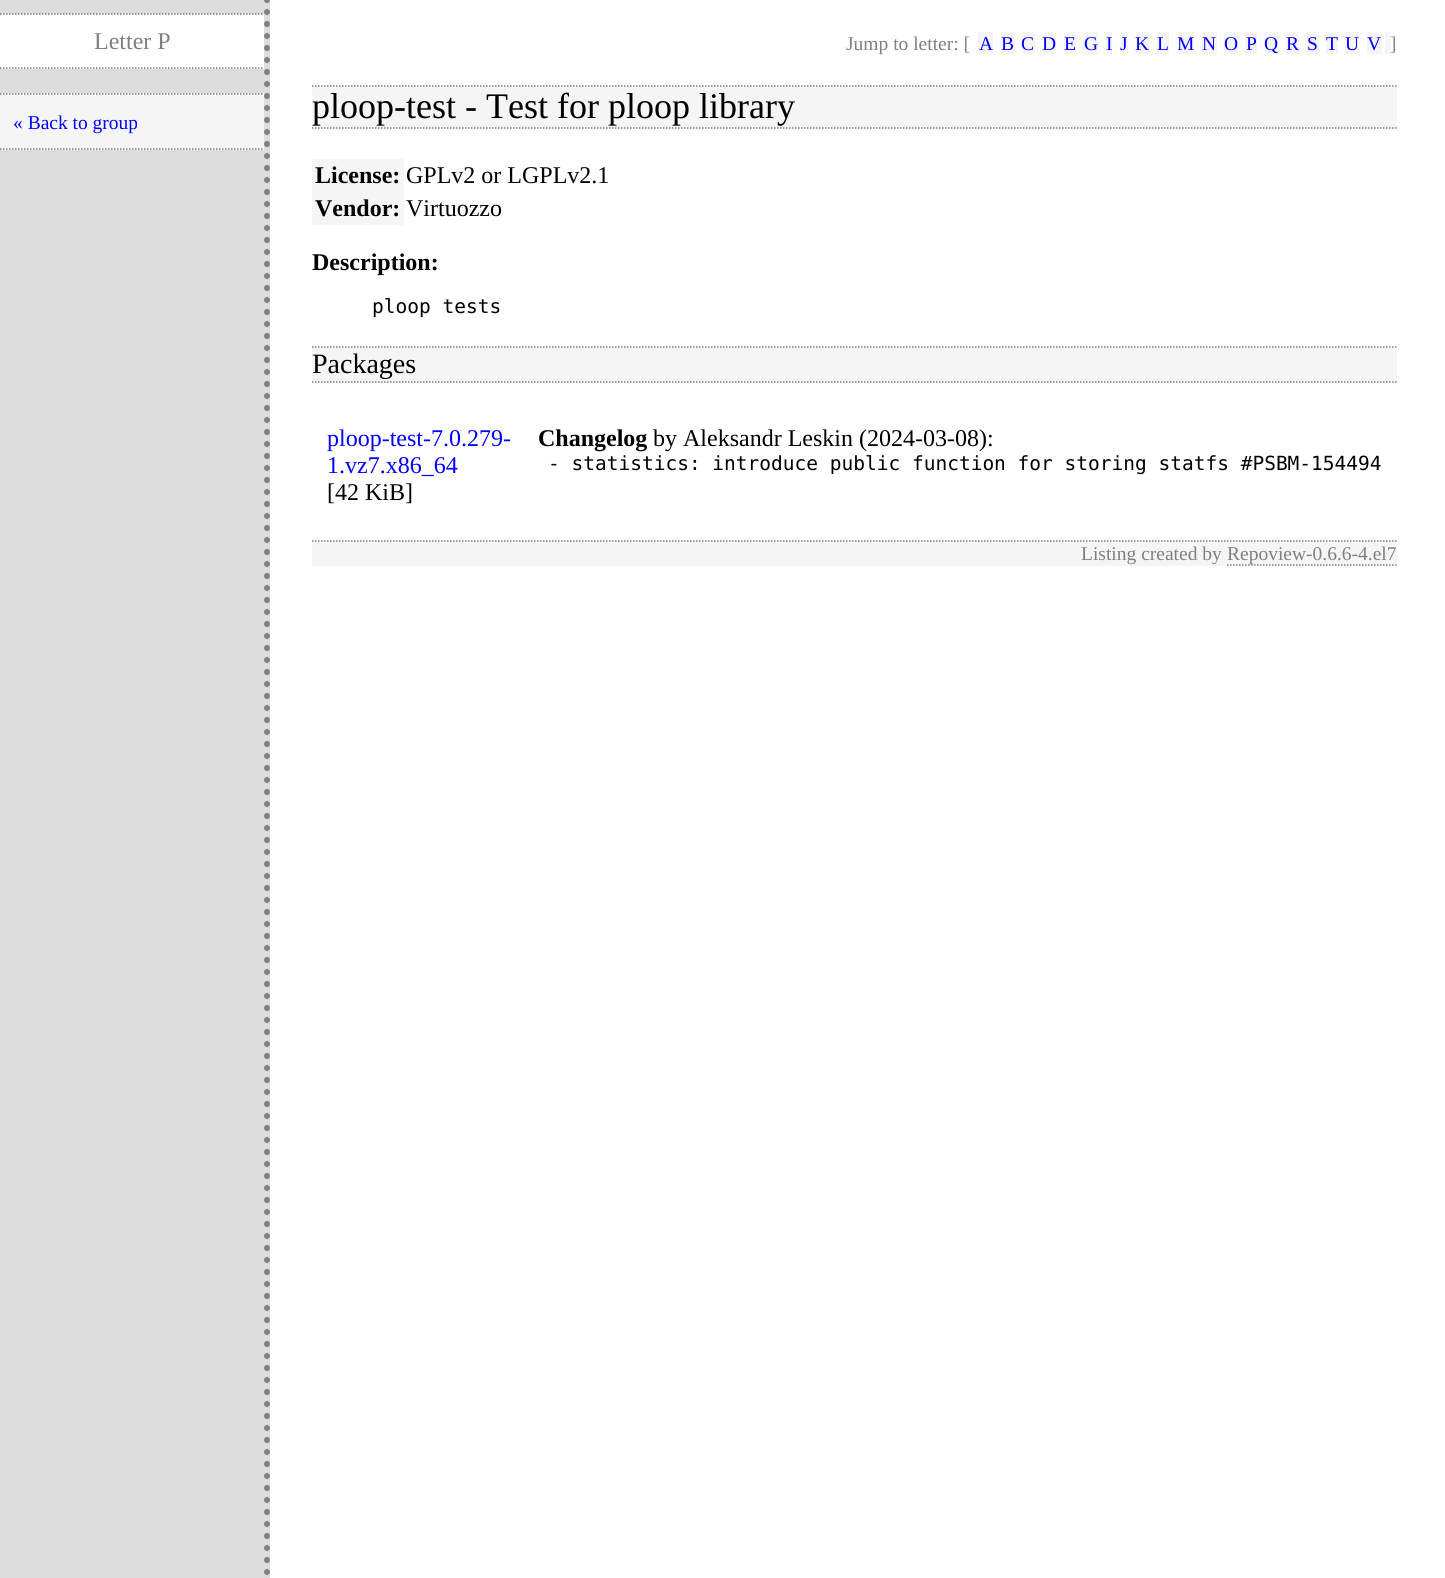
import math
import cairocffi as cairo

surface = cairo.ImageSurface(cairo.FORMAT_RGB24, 1445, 1578)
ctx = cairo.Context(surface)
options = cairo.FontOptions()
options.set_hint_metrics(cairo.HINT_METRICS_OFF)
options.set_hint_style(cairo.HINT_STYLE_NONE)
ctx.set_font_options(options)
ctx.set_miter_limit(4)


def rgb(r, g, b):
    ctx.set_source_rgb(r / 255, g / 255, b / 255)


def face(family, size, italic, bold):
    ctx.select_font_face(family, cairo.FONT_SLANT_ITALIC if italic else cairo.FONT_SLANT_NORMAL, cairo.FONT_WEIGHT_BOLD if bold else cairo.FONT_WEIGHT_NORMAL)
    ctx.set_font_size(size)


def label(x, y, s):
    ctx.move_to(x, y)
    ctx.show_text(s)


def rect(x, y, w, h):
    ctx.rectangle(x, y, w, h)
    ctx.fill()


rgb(255, 255, 255)
ctx.paint()
rgb(220, 220, 220)
rect(0, 0, 270, 1578)
ctx.new_path()
ctx.move_to(267, 0)
ctx.line_to(267, 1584)
rgb(128, 128, 128)
ctx.set_line_width(6)
ctx.set_line_cap(cairo.LINE_CAP_ROUND)
ctx.set_dash([0, 12])
ctx.stroke()
rgb(255, 255, 255)
rect(0, 14, 264, 55)
ctx.new_path()
ctx.move_to(0, 14)
ctx.line_to(264, 14)
rgb(128, 128, 128)
ctx.set_line_width(1.5)
ctx.set_line_cap(cairo.LINE_CAP_BUTT)
ctx.set_dash([1.5, 1.5])
ctx.stroke()
ctx.new_path()
ctx.move_to(0, 68)
ctx.line_to(264, 68)
ctx.stroke()
face('Liberation Serif', 24, 0, 0)
label(94, 49, 'Letter P')
rgb(245, 245, 245)
rect(0, 93, 264, 57)
ctx.new_path()
ctx.move_to(0, 94)
ctx.line_to(264, 94)
rgb(128, 128, 128)
ctx.stroke()
ctx.new_path()
ctx.move_to(0, 149)
ctx.line_to(264, 149)
ctx.stroke()
face('Liberation Serif', 19.5, 0, 0)
rgb(0, 0, 255)
label(13, 129, '« Back to group')
rgb(128, 128, 128)
label(846, 50, 'Jump to letter: [')
rgb(245, 245, 245)
rect(978, 32, 15, 22)
rgb(0, 0, 255)
label(979, 50, 'A')
rgb(245, 245, 245)
rect(1001, 32, 13, 22)
rgb(0, 0, 255)
label(1001, 50, 'B')
rgb(245, 245, 245)
rect(1022, 32, 13, 22)
rgb(0, 0, 255)
label(1021, 50, 'C')
rgb(245, 245, 245)
rect(1043, 32, 13, 22)
rgb(0, 0, 255)
label(1042, 50, 'D')
rgb(245, 245, 245)
rect(1064, 32, 12, 22)
rgb(0, 0, 255)
label(1064, 50, 'E')
rgb(245, 245, 245)
rect(1083, 32, 15, 22)
rgb(0, 0, 255)
label(1084, 50, 'G')
rgb(245, 245, 245)
rect(1106, 32, 6, 22)
rgb(0, 0, 255)
label(1106, 50, 'I')
rgb(245, 245, 245)
rect(1121, 32, 7, 22)
rgb(0, 0, 255)
label(1120, 50, 'J')
rgb(245, 245, 245)
rect(1136, 32, 13, 22)
rgb(0, 0, 255)
label(1135, 50, 'K')
rgb(245, 245, 245)
rect(1157, 32, 12, 22)
rgb(0, 0, 255)
label(1157, 50, 'L')
rgb(245, 245, 245)
rect(1178, 32, 16, 22)
rgb(0, 0, 255)
label(1177, 50, 'M')
rgb(245, 245, 245)
rect(1202, 32, 15, 22)
rgb(0, 0, 255)
label(1202, 50, 'N')
rgb(245, 245, 245)
rect(1224, 32, 14, 22)
rgb(0, 0, 255)
label(1224, 50, 'O')
rgb(245, 245, 245)
rect(1245, 32, 12, 22)
rgb(0, 0, 255)
label(1246, 50, 'P')
rgb(245, 245, 245)
rect(1265, 32, 13, 22)
rgb(0, 0, 255)
label(1264, 50, 'Q')
rgb(245, 245, 245)
rect(1286, 32, 13, 22)
rgb(0, 0, 255)
label(1286, 50, 'R')
rgb(245, 245, 245)
rect(1307, 32, 12, 22)
rgb(0, 0, 255)
label(1307, 50, 'S')
rgb(245, 245, 245)
rect(1326, 32, 12, 22)
rgb(0, 0, 255)
label(1326, 50, 'T')
rgb(245, 245, 245)
rect(1346, 32, 13, 22)
rgb(0, 0, 255)
label(1345, 50, 'U')
rgb(245, 245, 245)
rect(1367, 32, 15, 22)
rgb(0, 0, 255)
label(1367, 50, 'V')
rgb(245, 245, 245)
rect(1385, 32, 6, 22)
rgb(128, 128, 128)
label(1390, 50, ']')
rgb(245, 245, 245)
rect(312, 86, 1085, 43)
ctx.new_path()
ctx.move_to(312, 86)
ctx.line_to(1396.5, 86)
rgb(128, 128, 128)
ctx.stroke()
ctx.new_path()
ctx.move_to(312, 128)
ctx.line_to(1396.5, 128)
ctx.stroke()
face('Liberation Serif', 36, 0, 0)
rgb(0, 0, 0)
label(312, 118, 'ploop-test - Test for ploop library')
rgb(245, 245, 245)
rect(312, 159, 92, 66)
face('Liberation Serif', 24, 0, 1)
rgb(0, 0, 0)
label(315, 183, 'License:')
face('Liberation Serif', 24, 0, 0)
label(406, 183, 'GPLv2 or LGPLv2.1')
face('Liberation Serif', 24, 0, 1)
label(315, 216, 'Vendor:')
face('Liberation Serif', 24, 0, 0)
label(406, 216, 'Virtuozzo')
face('Liberation Serif', 24, 0, 1)
label(312, 270, 'Description:')
face('DejaVu Sans Mono', 19.5, 0, 0)
label(372, 313, 'ploop tests')
rgb(245, 245, 245)
rect(312, 347, 1085, 36)
ctx.new_path()
ctx.move_to(312, 347)
ctx.line_to(1396.5, 347)
rgb(128, 128, 128)
ctx.stroke()
ctx.new_path()
ctx.move_to(312, 382)
ctx.line_to(1396.5, 382)
ctx.stroke()
face('Liberation Serif', 28, 0, 0)
rgb(0, 0, 0)
label(312, 373, 'Packages')
face('Liberation Serif', 24, 0, 0)
rgb(0, 0, 255)
label(327, 446, 'ploop-test-7.0.279-')
label(327, 473, '1.vz7.x86_64')
rgb(0, 0, 0)
label(327, 500, '[42 KiB]')
face('Liberation Serif', 24, 0, 1)
label(538, 446, 'Changelog')
face('Liberation Serif', 24, 0, 0)
label(653, 446, 'by Aleksandr Leskin (2024-03-08):')
face('DejaVu Sans Mono', 19.5, 0, 0)
label(548, 470, '- statistics: introduce public function for storing statfs #PSBM-154494')
rgb(245, 245, 245)
rect(312, 540, 1085, 26)
ctx.new_path()
ctx.move_to(312, 541)
ctx.line_to(1396.5, 541)
rgb(128, 128, 128)
ctx.stroke()
face('Liberation Serif', 19.5, 0, 0)
label(1081, 560, 'Listing created by')
ctx.new_path()
ctx.move_to(1227, 565)
ctx.line_to(1396.5, 565)
ctx.stroke()
label(1227, 560, 'Repoview-0.6.6-4.el7')
surface.write_to_png('render.png')
